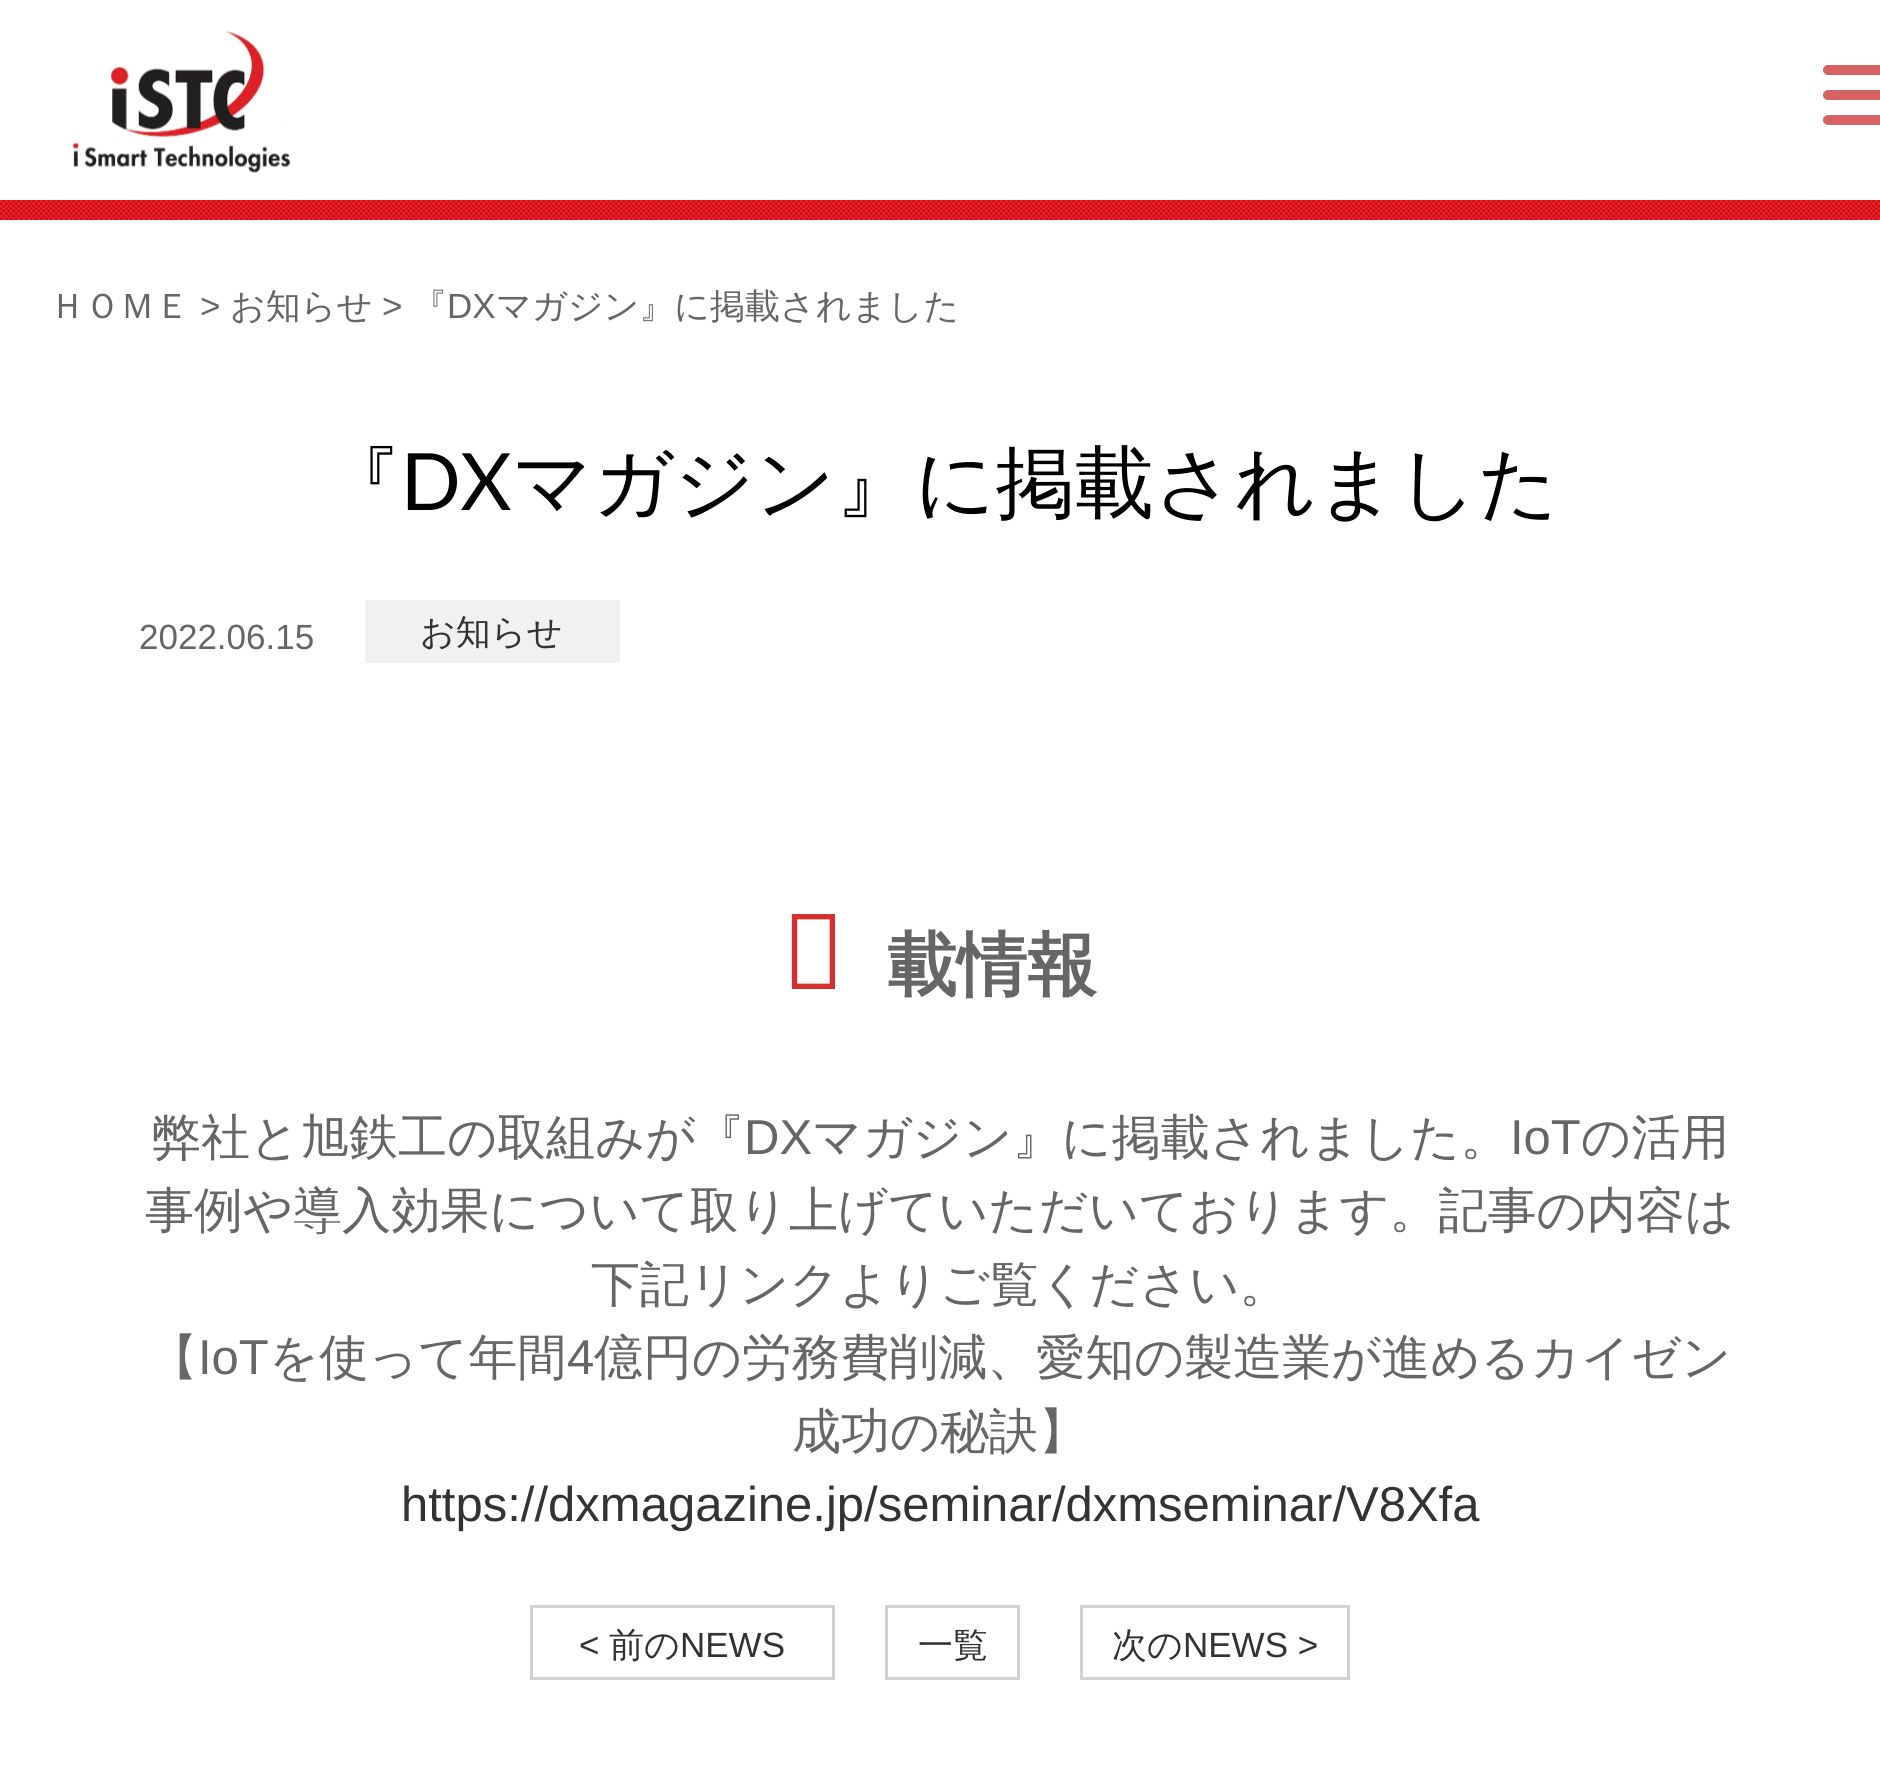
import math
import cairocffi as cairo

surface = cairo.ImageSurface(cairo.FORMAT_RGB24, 1880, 1765)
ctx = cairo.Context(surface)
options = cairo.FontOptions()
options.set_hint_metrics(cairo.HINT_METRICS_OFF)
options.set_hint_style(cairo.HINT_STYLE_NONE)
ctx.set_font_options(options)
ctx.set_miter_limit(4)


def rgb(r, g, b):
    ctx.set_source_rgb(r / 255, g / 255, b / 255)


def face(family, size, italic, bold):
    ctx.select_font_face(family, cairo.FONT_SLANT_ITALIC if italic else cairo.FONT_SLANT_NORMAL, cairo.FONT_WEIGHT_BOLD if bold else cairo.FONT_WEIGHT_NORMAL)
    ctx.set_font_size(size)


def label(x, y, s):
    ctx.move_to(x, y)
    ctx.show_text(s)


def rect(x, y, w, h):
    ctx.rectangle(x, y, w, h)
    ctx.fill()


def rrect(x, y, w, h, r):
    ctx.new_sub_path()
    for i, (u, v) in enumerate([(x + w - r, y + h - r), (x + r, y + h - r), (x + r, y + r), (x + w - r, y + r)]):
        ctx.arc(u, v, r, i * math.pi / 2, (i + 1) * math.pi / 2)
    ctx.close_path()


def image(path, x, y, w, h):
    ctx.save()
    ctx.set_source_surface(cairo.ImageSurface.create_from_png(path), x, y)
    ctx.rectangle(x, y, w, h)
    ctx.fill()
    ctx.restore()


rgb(255, 255, 255)
ctx.paint()
image('image0.png', 72, 30, 218, 144)
rgb(214, 98, 98)
rrect(1823, 65, 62, 10, 5)
ctx.fill()
rrect(1823, 90, 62, 10, 5)
ctx.fill()
rrect(1823, 115, 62, 10, 5)
ctx.fill()
rgb(211, 47, 47)
rect(0, 200, 1880, 20)
image('image1.png', 0, 200, 1880, 20)
face('WenQuanYi Zen Hei Medium', 35, 0, 0)
rgb(102, 102, 102)
label(50, 318, 'ＨＯＭＥ')
face('Liberation Sans', 35, 0, 0)
label(200, 318, '>')
face('WenQuanYi Zen Hei Medium', 35, 0, 0)
label(230, 318, 'お知らせ')
face('Liberation Sans', 35, 0, 0)
label(382, 318, '>')
face('WenQuanYi Zen Hei Medium', 35, 0, 0)
label(412, 318, '『')
face('Liberation Sans', 35, 0, 0)
label(447, 318, 'DX')
face('WenQuanYi Zen Hei Medium', 35, 0, 0)
label(496, 318, 'マガジン』に掲載されました')
face('WenQuanYi Zen Hei Medium', 79.1, 0, 0)
rgb(0, 0, 0)
label(322, 510, '『')
face('Lato', 79.1, 0, 0)
label(401, 510, 'DX')
face('WenQuanYi Zen Hei Medium', 79.1, 0, 0)
label(512, 510, 'マガジン』に掲載されました')
face('Liberation Sans', 35, 0, 0)
rgb(102, 102, 102)
label(139, 649, '2022.06.15')
rgb(241, 241, 241)
rect(365, 600, 255, 63)
face('WenQuanYi Zen Hei Medium', 35, 0, 0)
rgb(51, 51, 51)
label(420, 644, 'お知らせ')
face('Noto Sans Thin', 105, 0, 0)
rgb(211, 47, 47)
label(782, 989, '掲')
face('WenQuanYi Zen Hei', 70, 0, 1)
rgb(102, 102, 102)
label(887, 989, '載情報')
face('WenQuanYi Zen Hei Medium', 49, 0, 0)
label(152, 1154, '弊社と旭鉄工の取組みが『')
face('Liberation Sans', 49, 0, 0)
label(744, 1154, 'DX')
face('WenQuanYi Zen Hei Medium', 49, 0, 0)
label(812, 1154, 'マガジン』に掲載されました。')
face('Liberation Sans', 49, 0, 0)
label(1510, 1154, 'IoT')
face('WenQuanYi Zen Hei Medium', 49, 0, 0)
label(1581, 1154, 'の活用')
label(145, 1227, '事例や導入効果について取り上げていただいております。記事の内容は')
label(591, 1301, '下記リンクよりご覧ください。')
label(149, 1374, '【')
face('Liberation Sans', 49, 0, 0)
label(198, 1374, 'IoT')
face('WenQuanYi Zen Hei Medium', 49, 0, 0)
label(269, 1374, 'を使って年間')
face('Liberation Sans', 49, 0, 0)
label(567, 1374, '4')
face('WenQuanYi Zen Hei Medium', 49, 0, 0)
label(594, 1374, '億円の労務費削減、愛知の製造業が進めるカイゼン')
label(792, 1448, '成功の秘訣】')
face('Liberation Sans', 49, 0, 0)
rgb(51, 51, 51)
label(401, 1521, 'https://dxmagazine.jp/seminar/dxmseminar/V8Xfa')
ctx.rectangle(531.5, 1606.5, 302, 72)
rgb(210, 210, 210)
ctx.set_line_width(3)
ctx.stroke()
face('Liberation Sans', 35, 0, 0)
rgb(51, 51, 51)
label(579, 1657, '<')
face('WenQuanYi Zen Hei Medium', 35, 0, 0)
label(609, 1657, '前の')
face('Liberation Sans', 35, 0, 0)
label(680, 1657, 'NEWS')
ctx.rectangle(886.5, 1606.5, 132, 72)
rgb(210, 210, 210)
ctx.stroke()
face('WenQuanYi Zen Hei Medium', 35, 0, 0)
rgb(51, 51, 51)
label(918, 1657, '一覧')
ctx.rectangle(1081.5, 1606.5, 267, 72)
rgb(210, 210, 210)
ctx.stroke()
rgb(51, 51, 51)
label(1112, 1657, '次の')
face('Liberation Sans', 35, 0, 0)
label(1183, 1657, 'NEWS >')
surface.write_to_png('render.png')
